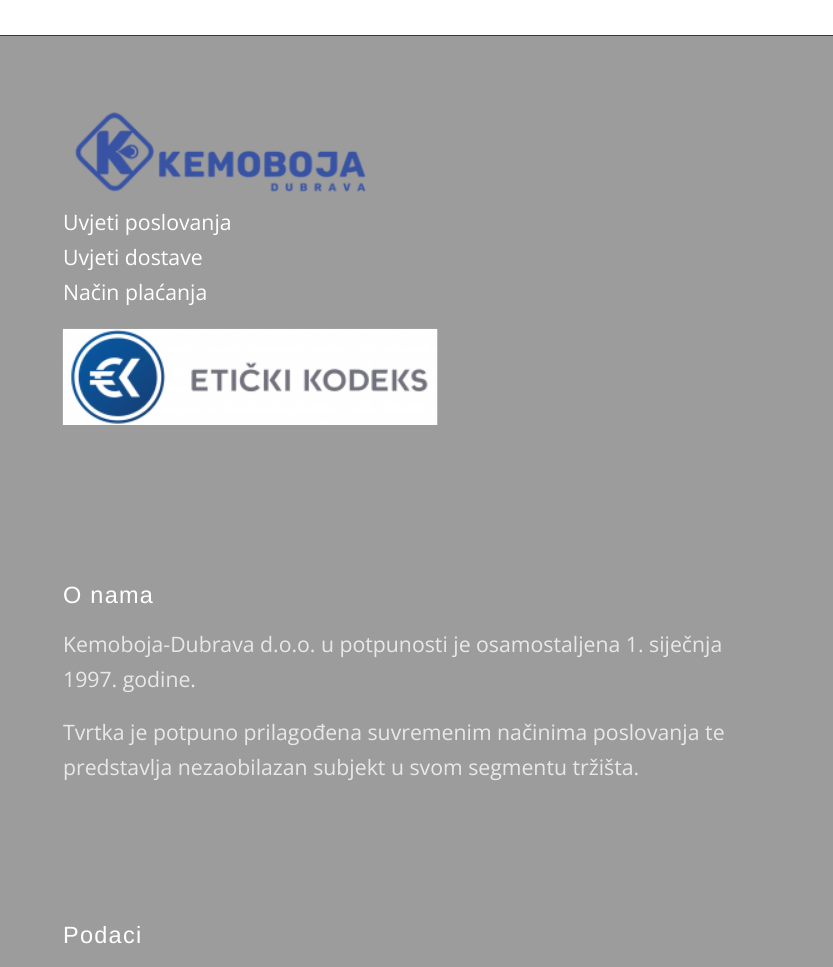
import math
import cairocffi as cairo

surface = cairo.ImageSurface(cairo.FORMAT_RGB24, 833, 967)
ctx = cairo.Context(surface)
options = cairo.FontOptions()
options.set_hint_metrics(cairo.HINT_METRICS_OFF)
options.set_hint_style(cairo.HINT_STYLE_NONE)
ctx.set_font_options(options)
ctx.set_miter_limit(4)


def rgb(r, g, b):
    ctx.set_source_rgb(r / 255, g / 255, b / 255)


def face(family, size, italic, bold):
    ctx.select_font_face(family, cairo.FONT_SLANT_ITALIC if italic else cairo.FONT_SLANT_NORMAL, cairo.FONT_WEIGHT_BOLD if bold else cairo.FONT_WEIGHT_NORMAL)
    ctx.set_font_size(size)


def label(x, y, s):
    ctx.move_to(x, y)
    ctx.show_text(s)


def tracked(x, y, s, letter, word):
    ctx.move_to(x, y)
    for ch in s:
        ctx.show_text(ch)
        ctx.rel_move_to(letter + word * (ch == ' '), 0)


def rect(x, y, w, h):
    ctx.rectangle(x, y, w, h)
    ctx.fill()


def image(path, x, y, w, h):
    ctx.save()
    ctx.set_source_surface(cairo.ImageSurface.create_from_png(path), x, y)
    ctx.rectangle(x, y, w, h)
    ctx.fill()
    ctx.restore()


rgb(255, 255, 255)
ctx.paint()
rgb(156, 156, 156)
rect(0, 36, 833, 931)
rgb(53, 56, 60)
rect(0, 35, 833, 1)
image('image0.png', 75, 112, 291, 80)
face('Open Sans', 21.25, 0, 0)
rgb(255, 255, 255)
label(63, 230, 'Uvjeti poslovanja')
label(63, 265, 'Uvjeti dostave')
label(63, 300, 'Način plaćanja')
image('image1.png', 62, 328, 376, 97)
face('Liberation Sans', 23.5, 0, 0)
tracked(63, 603, 'O nama', 1.25, 0)
face('Open Sans', 21.25, 0, 0)
rgb(232, 232, 232)
label(63, 652, 'Kemoboja-Dubrava d.o.o. u potpunosti je osamostaljena 1. siječnja')
label(63, 687, '1997. godine.')
label(63, 740, 'Tvrtka je potpuno prilagođena suvremenim načinima poslovanja te')
label(63, 775, 'predstavlja nezaobilazan subjekt u svom segmentu tržišta.')
face('Liberation Sans', 23.5, 0, 0)
rgb(255, 255, 255)
tracked(63, 943, 'Podaci', 1.25, 0)
surface.write_to_png('render.png')
